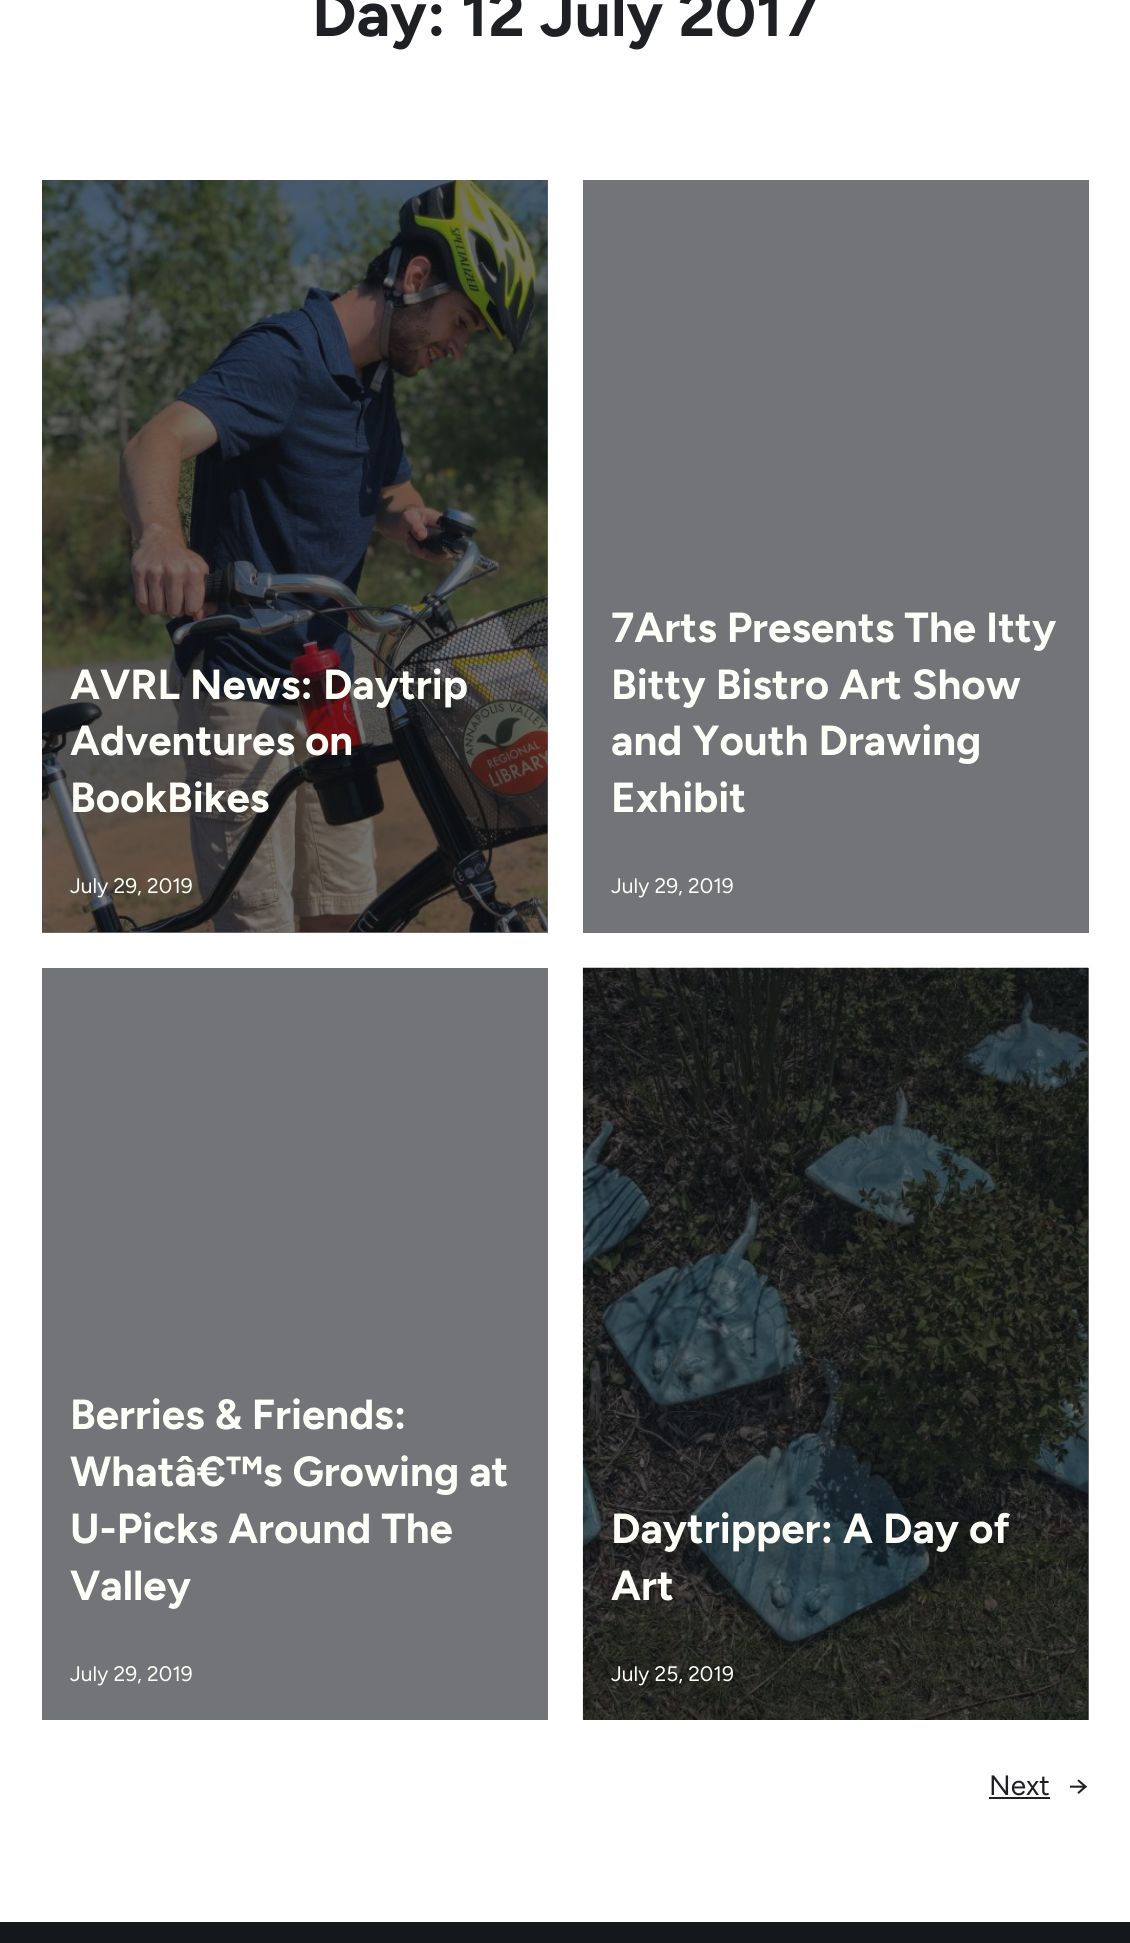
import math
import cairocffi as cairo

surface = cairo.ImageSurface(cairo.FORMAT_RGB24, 1130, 1943)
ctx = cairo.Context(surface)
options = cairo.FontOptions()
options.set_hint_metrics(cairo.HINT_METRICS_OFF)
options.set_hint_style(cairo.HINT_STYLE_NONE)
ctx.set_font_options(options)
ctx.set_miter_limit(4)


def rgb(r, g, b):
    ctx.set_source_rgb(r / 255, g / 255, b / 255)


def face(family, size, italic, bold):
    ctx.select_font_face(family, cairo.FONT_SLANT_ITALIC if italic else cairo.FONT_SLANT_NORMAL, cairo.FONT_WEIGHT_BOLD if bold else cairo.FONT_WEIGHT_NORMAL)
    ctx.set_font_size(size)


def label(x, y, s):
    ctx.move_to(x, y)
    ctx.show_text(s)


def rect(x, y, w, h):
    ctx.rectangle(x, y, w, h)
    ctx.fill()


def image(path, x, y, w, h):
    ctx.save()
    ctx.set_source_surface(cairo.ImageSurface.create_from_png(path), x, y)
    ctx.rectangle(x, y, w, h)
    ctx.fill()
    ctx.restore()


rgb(255, 255, 255)
ctx.paint()
rgb(114, 116, 119)
rect(1088, 968, 1, 752)
rect(42, 180, 506, 753)
face('Figtree', 63.5, 0, 1)
rgb(31, 32, 35)
label(312, 36, 'Day: 12 July 2017')
image('image0.png', 42, 180, 506, 753)
face('Figtree', 42, 0, 1)
rgb(255, 255, 250)
label(70, 699, 'AVRL News: Daytrip')
label(70, 755, 'Adventures on')
label(70, 812, 'BookBikes')
face('Figtree', 21, 0, 0)
label(70, 893, 'July 29, 2019')
rgb(114, 116, 119)
rect(583, 180, 506, 753)
face('Figtree', 42, 0, 1)
rgb(255, 255, 250)
label(611, 642, '7Arts Presents The Itty')
label(611, 699, 'Bitty Bistro Art Show')
label(611, 755, 'and Youth Drawing')
label(611, 812, 'Exhibit')
face('Figtree', 21, 0, 0)
label(611, 893, 'July 29, 2019')
rgb(114, 116, 119)
rect(42, 968, 506, 752)
face('Figtree', 42, 0, 1)
rgb(255, 255, 250)
label(70, 1429, 'Berries & Friends:')
label(70, 1486, 'Whatâ€™s Growing at')
label(70, 1543, 'U-Picks Around The')
label(70, 1600, 'Valley')
face('Figtree', 21, 0, 0)
label(70, 1681, 'July 29, 2019')
image('image1.png', 582, 967, 507, 753)
face('Figtree', 42, 0, 1)
label(611, 1543, 'Daytripper: A Day of')
label(611, 1600, 'Art')
face('Figtree', 21, 0, 0)
label(611, 1681, 'July 25, 2019')
face('Figtree', 28, 0, 0)
rgb(31, 32, 35)
label(989, 1795, 'Next')
rect(989, 1797, 61, 2)
label(1068, 1795, '→')
rgb(20, 23, 28)
rect(0, 1922, 1130, 21)
surface.write_to_png('render.png')
